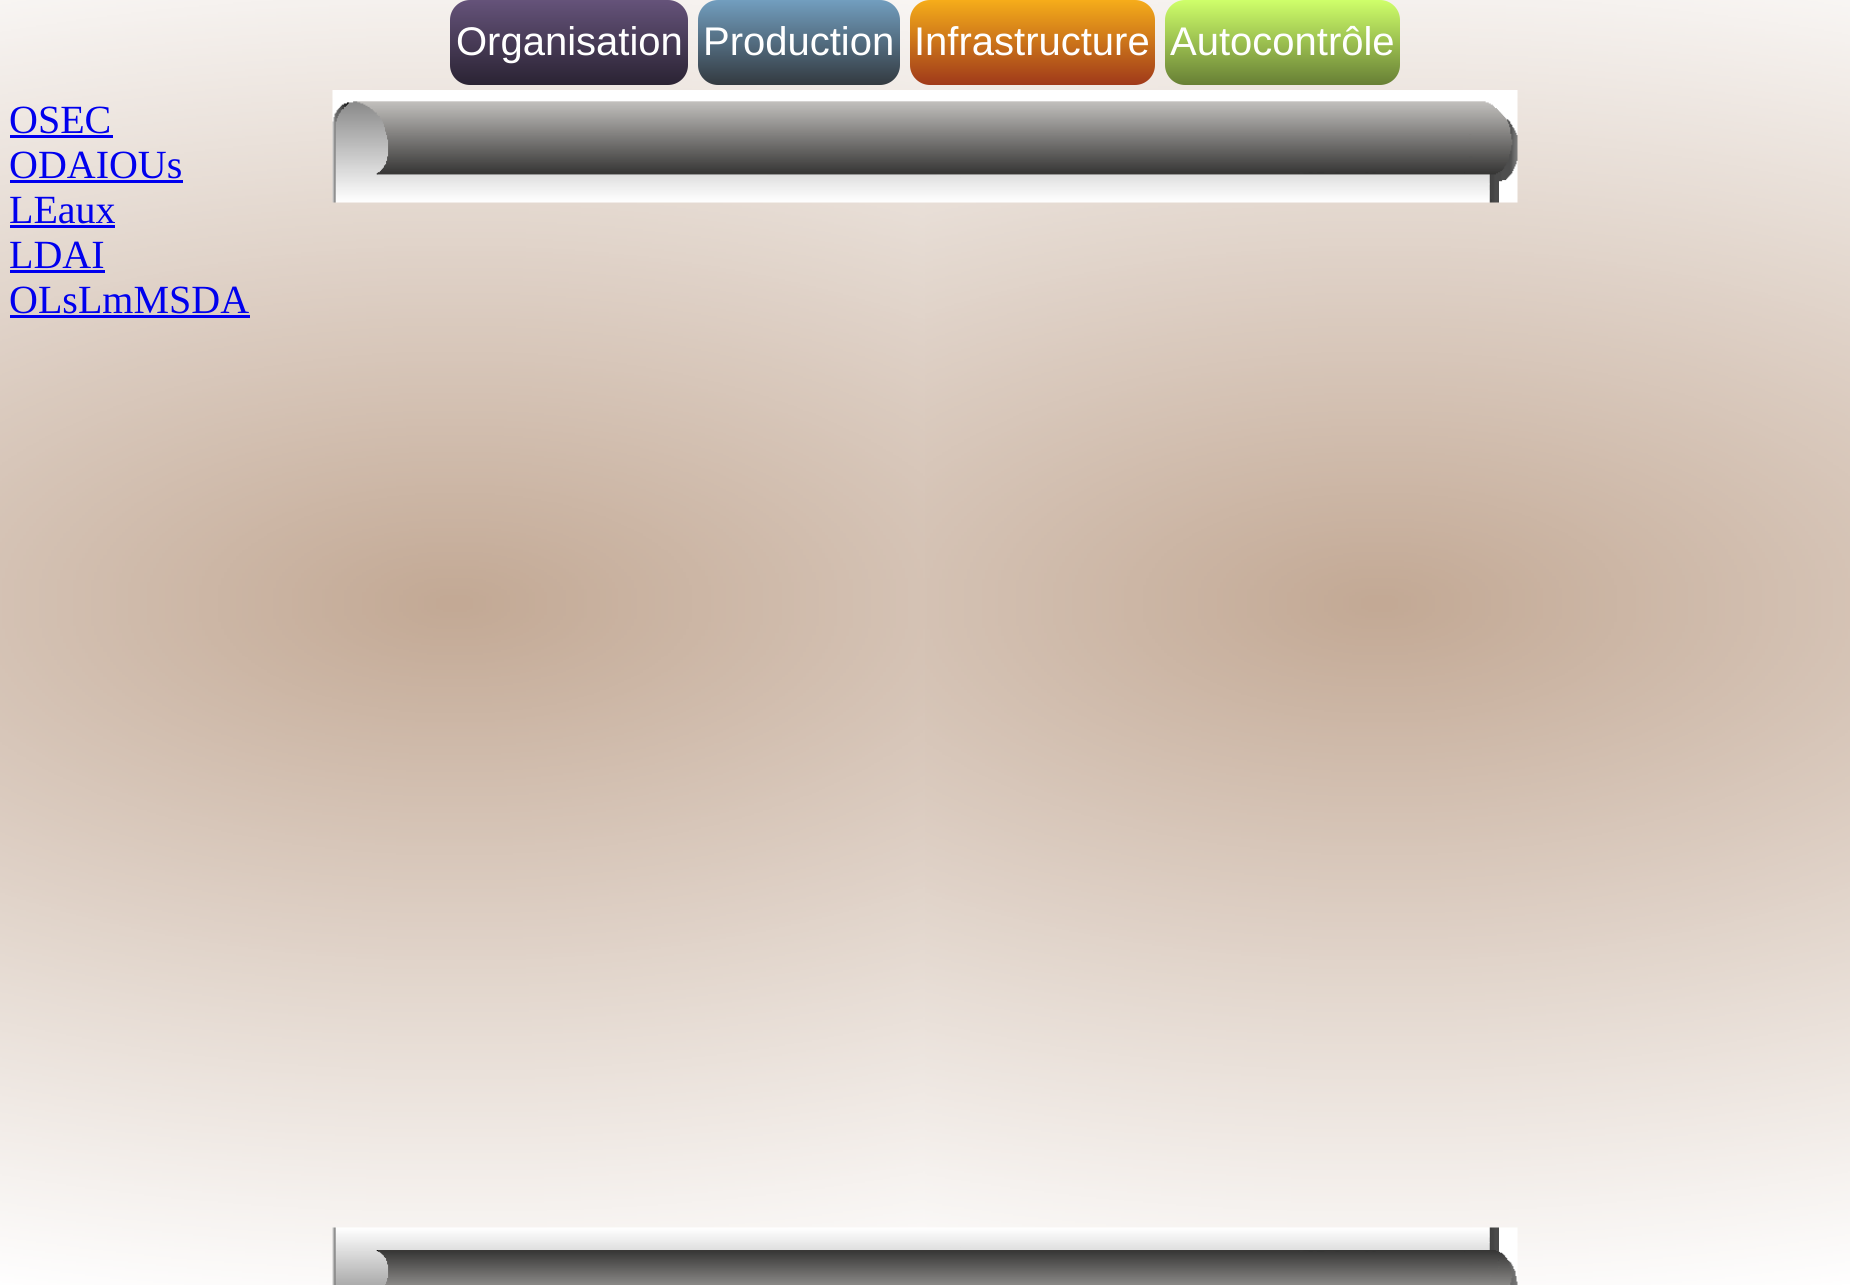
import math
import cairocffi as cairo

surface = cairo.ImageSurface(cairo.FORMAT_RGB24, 1850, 1285)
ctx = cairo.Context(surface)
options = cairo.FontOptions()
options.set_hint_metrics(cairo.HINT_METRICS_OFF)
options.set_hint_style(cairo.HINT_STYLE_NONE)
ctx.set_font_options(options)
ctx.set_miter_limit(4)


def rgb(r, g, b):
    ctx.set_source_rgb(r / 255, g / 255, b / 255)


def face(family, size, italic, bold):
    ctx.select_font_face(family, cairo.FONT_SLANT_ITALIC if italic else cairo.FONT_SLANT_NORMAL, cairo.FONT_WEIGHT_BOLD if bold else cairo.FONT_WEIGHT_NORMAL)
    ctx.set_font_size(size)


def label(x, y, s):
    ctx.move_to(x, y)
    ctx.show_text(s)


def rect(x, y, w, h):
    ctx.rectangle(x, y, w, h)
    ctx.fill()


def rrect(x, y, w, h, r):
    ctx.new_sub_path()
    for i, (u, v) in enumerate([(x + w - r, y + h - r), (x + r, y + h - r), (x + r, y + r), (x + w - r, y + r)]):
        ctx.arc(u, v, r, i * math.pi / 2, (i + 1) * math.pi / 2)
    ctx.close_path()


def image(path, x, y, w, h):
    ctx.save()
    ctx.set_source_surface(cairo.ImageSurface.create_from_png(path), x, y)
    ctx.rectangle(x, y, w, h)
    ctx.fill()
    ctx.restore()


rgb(255, 255, 255)
ctx.paint()
image('image0.png', 925, 0, 925, 1285)
image('image0.png', 0, 0, 925, 1285)
gradient = cairo.LinearGradient(569, 0, 569, 85)
gradient.add_color_stop_rgba(0, 0.396, 0.325, 0.478, 1)
gradient.add_color_stop_rgba(1, 0.165, 0.137, 0.2, 1)
ctx.set_source(gradient)
rrect(450, 0, 238, 85, 20)
ctx.fill()
face('Liberation Sans', 40, 0, 0)
rgb(255, 255, 255)
label(456, 55, 'Organisation')
gradient = cairo.LinearGradient(799, 0, 799, 85)
gradient.add_color_stop_rgba(0, 0.447, 0.62, 0.749, 1)
gradient.add_color_stop_rgba(1, 0.2, 0.227, 0.251, 1)
ctx.set_source(gradient)
rrect(698, 0, 202, 85, 20)
ctx.fill()
rgb(255, 255, 255)
label(703, 55, 'Production')
gradient = cairo.LinearGradient(1033, 0, 1033, 85)
gradient.add_color_stop_rgba(0, 0.965, 0.678, 0.102, 1)
gradient.add_color_stop_rgba(1, 0.624, 0.224, 0.102, 1)
ctx.set_source(gradient)
rrect(910, 0, 245, 85, 20)
ctx.fill()
rgb(255, 255, 255)
label(914, 55, 'Infrastructure')
gradient = cairo.LinearGradient(1283, 0, 1283, 85)
gradient.add_color_stop_rgba(0, 0.812, 1, 0.416, 1)
gradient.add_color_stop_rgba(1, 0.404, 0.498, 0.208, 1)
ctx.set_source(gradient)
rrect(1165, 0, 235, 85, 20)
ctx.fill()
rgb(255, 255, 255)
label(1170, 55, 'Autocontrôle')
face('Liberation Serif', 40, 0, 0)
rgb(0, 0, 238)
label(9, 133, 'OSEC')
rect(10, 135, 103, 3)
label(9, 178, 'ODAIOUs')
rect(10, 180, 173, 3)
label(9, 223, 'LEaux')
rect(10, 225, 105, 3)
label(9, 268, 'LDAI')
rect(10, 270, 95, 3)
label(9, 313, 'OLsLmMSDA')
rect(10, 315, 240, 3)
image('image1.png', 332, 90, 1186, 113)
image('image2.png', 332, 1227, 1186, 58)
surface.write_to_png('render.png')
